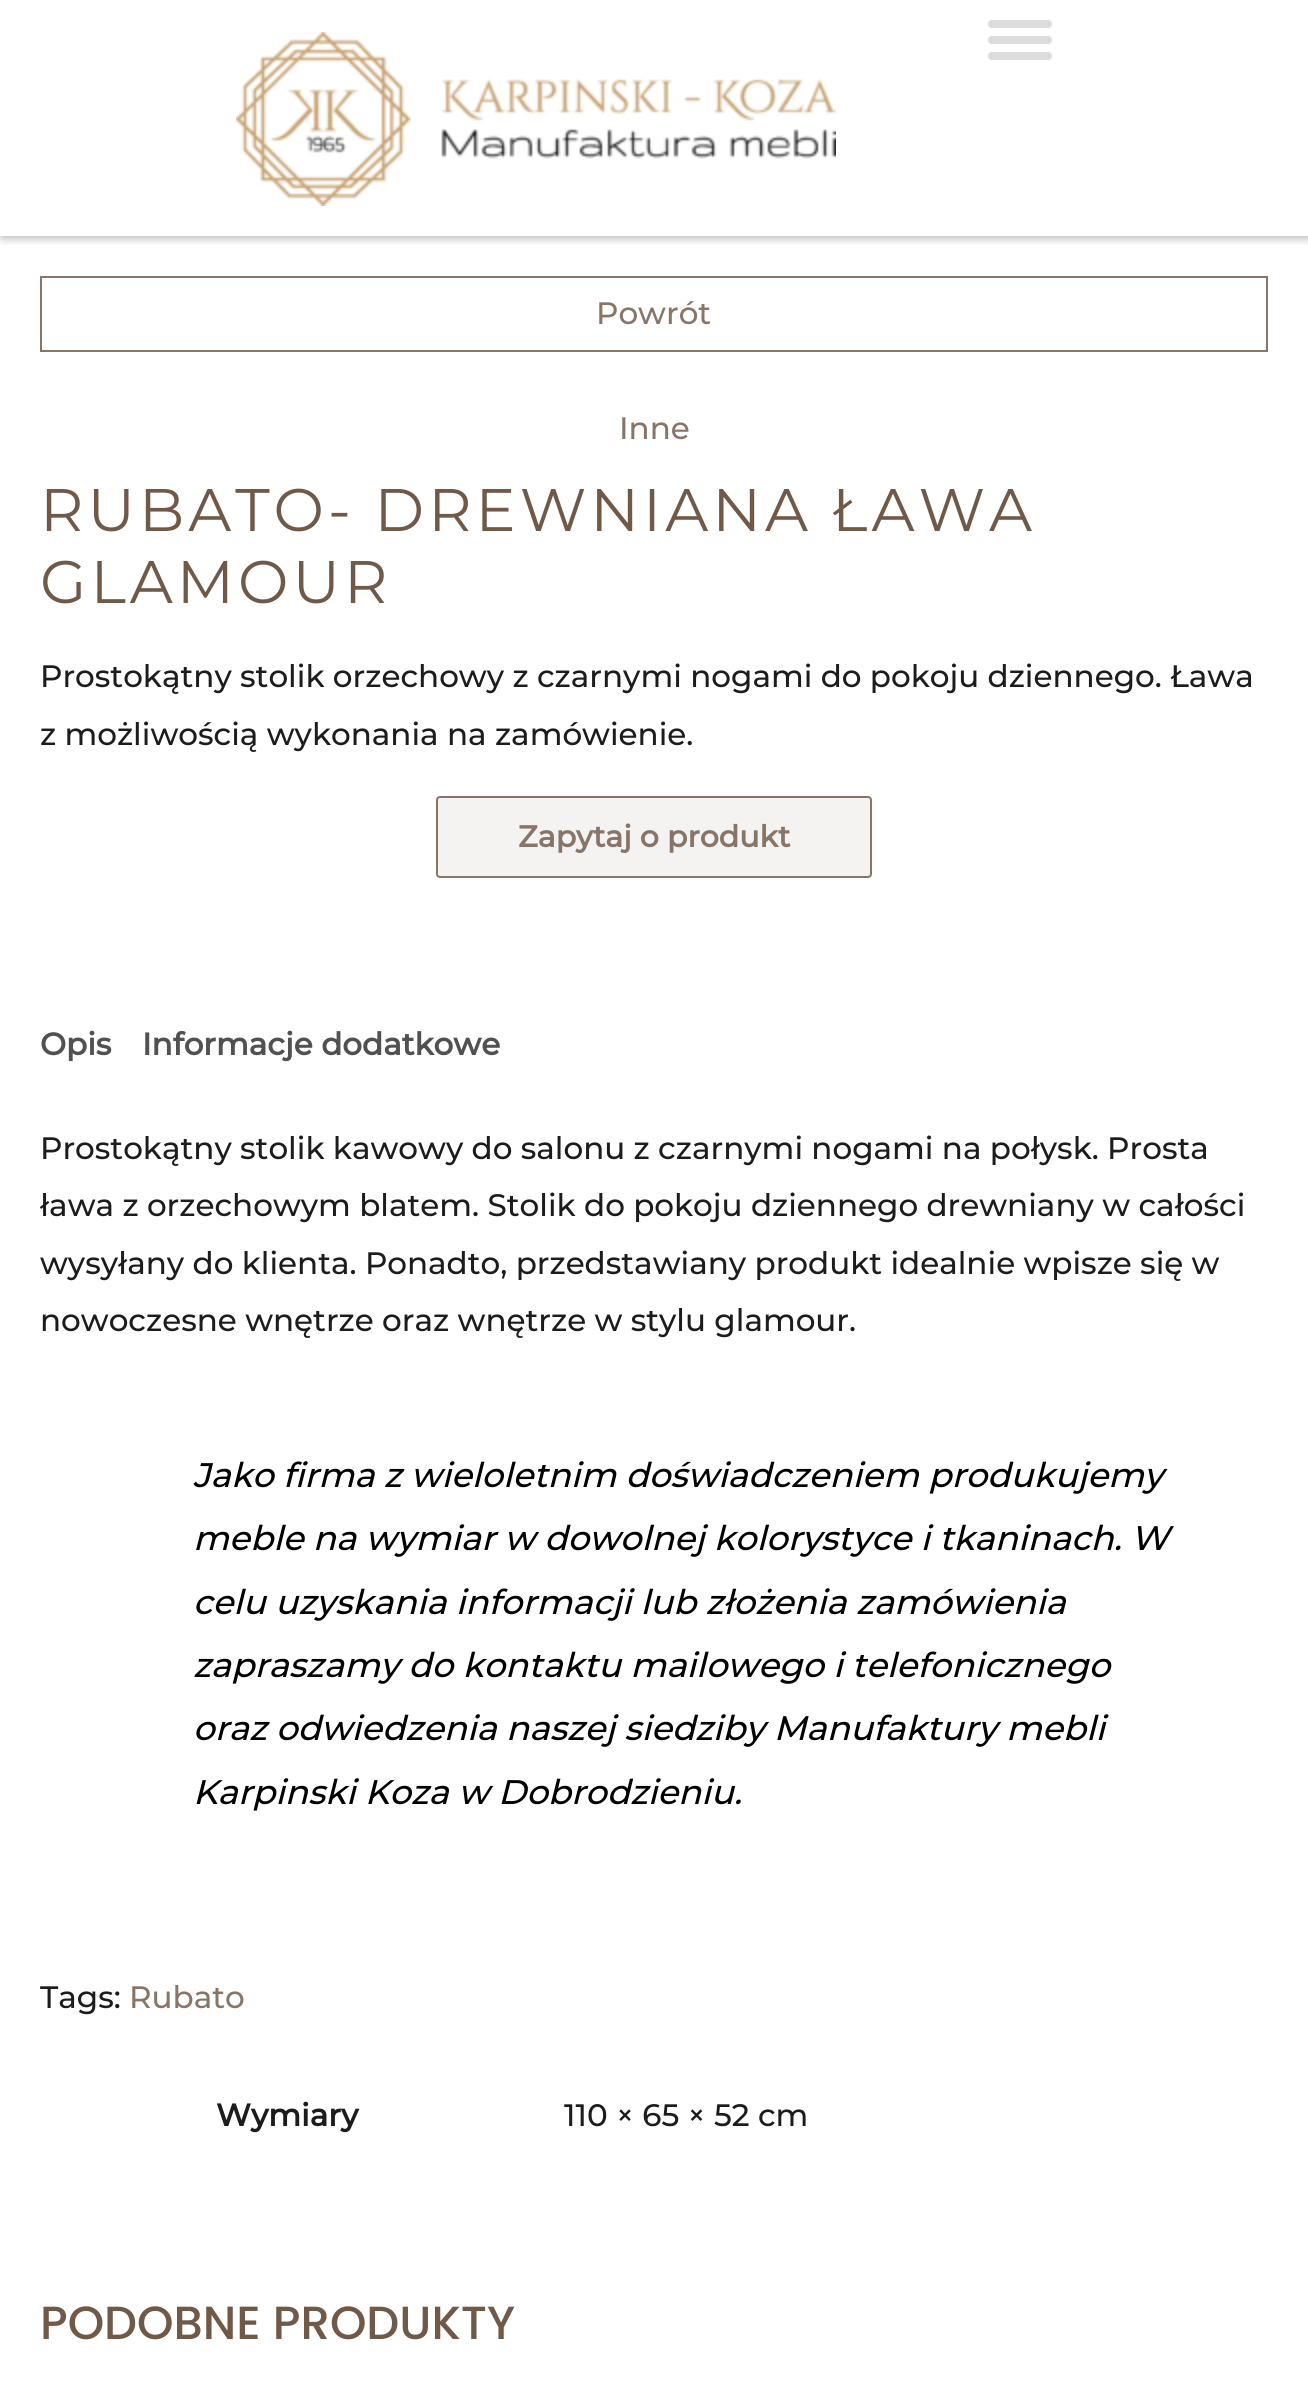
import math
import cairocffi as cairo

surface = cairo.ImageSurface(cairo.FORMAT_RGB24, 1308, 2396)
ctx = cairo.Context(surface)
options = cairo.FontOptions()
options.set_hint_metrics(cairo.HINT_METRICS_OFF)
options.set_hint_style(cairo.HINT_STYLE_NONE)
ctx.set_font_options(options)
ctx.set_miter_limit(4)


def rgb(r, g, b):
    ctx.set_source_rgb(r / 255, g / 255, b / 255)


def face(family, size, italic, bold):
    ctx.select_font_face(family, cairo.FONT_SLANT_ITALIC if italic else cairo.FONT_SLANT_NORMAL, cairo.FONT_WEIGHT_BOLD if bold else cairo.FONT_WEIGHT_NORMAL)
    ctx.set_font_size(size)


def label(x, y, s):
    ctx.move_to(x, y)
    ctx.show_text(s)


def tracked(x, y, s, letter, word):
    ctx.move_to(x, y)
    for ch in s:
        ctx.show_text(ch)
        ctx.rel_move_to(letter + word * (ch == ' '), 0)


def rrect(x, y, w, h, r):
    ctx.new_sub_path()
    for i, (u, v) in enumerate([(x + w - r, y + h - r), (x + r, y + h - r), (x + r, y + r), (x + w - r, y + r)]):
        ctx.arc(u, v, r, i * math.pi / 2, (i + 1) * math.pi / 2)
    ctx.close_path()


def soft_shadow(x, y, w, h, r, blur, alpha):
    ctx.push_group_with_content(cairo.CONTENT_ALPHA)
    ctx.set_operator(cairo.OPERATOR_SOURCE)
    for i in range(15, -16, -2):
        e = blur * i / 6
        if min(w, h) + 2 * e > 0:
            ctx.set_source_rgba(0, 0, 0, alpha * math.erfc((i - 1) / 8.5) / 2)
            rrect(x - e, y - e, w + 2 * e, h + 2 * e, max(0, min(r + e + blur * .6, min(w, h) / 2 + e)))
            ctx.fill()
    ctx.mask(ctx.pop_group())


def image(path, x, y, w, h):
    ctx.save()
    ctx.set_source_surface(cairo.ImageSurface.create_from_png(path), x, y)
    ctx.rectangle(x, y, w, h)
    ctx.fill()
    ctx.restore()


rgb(255, 255, 255)
ctx.paint()
ctx.save()
ctx.rectangle(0, 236, 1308, 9)
ctx.clip()
rgb(0, 0, 0)
soft_shadow(2, 2, 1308, 236, 0, 5, 0.3)
ctx.restore()
image('image0.png', 236, 32, 600, 174)
rgb(221, 221, 221)
rrect(988, 20, 64, 8, 4)
ctx.fill()
rrect(988, 36, 64, 8, 4)
ctx.fill()
rrect(988, 52, 64, 8, 4)
ctx.fill()
ctx.rectangle(41, 277, 1226, 74)
rgb(136, 117, 104)
ctx.stroke()
face('Montserrat Medium', 31, 0, 0)
label(596, 324, 'Powrót')
label(619, 439, 'Inne')
face('Montserrat', 60, 0, 0)
rgb(113, 89, 72)
tracked(40, 531, 'RUBATO- DREWNIANA ŁAWA', 4, 0)
tracked(40, 603, 'GLAMOUR', 4, 0)
face('Montserrat Medium', 31, 0, 0)
rgb(28, 28, 28)
label(40, 687, 'Prostokątny stolik orzechowy z czarnymi nogami do pokoju dziennego. Ława')
label(40, 745, 'z możliwością wykonania na zamówienie.')
rgb(244, 243, 242)
rrect(437, 797, 434, 80, 3)
ctx.fill_preserve()
rgb(136, 117, 104)
ctx.stroke()
face('Montserrat', 30, 0, 1)
label(518, 847, 'Zapytaj o produkt')
face('Montserrat', 31, 0, 1)
rgb(81, 81, 81)
label(40, 1055, 'Opis')
label(142, 1055, 'Informacje dodatkowe')
face('Montserrat Medium', 31, 0, 0)
rgb(28, 28, 28)
label(40, 1159, 'Prostokątny stolik kawowy do salonu z czarnymi nogami na połysk. Prosta')
label(40, 1216, 'ława z orzechowym blatem. Stolik do pokoju dziennego drewniany w całości')
label(40, 1274, 'wysyłany do klienta. Ponadto, przedstawiany produkt idealnie wpisze się w')
label(40, 1331, 'nowoczesne wnętrze oraz wnętrze w stylu glamour.')
face('Montserrat Medium', 34.1, 1, 0)
rgb(0, 0, 0)
label(193, 1487, 'Jako firma z wieloletnim doświadczeniem produkujemy')
label(193, 1550, 'meble na wymiar w dowolnej kolorystyce i tkaninach. W')
label(193, 1614, 'celu uzyskania informacji lub złożenia zamówienia')
label(193, 1677, 'zapraszamy do kontaktu mailowego i telefonicznego')
label(193, 1740, 'oraz odwiedzenia naszej siedziby Manufaktury mebli')
label(193, 1804, 'Karpinski Koza w Dobrodzieniu.')
face('Montserrat Medium', 31, 0, 0)
rgb(28, 28, 28)
label(40, 2008, 'Tags:')
rgb(136, 117, 104)
label(129, 2008, 'Rubato')
face('Montserrat', 31, 0, 1)
rgb(28, 28, 28)
label(216, 2126, 'Wymiary')
face('Montserrat Medium', 31, 0, 0)
label(564, 2126, '110 × 65 × 52 cm')
face('Poppins Medium', 46.5, 0, 0)
rgb(113, 89, 72)
label(40, 2339, 'PODOBNE PRODUKTY')
surface.write_to_png('render.png')
